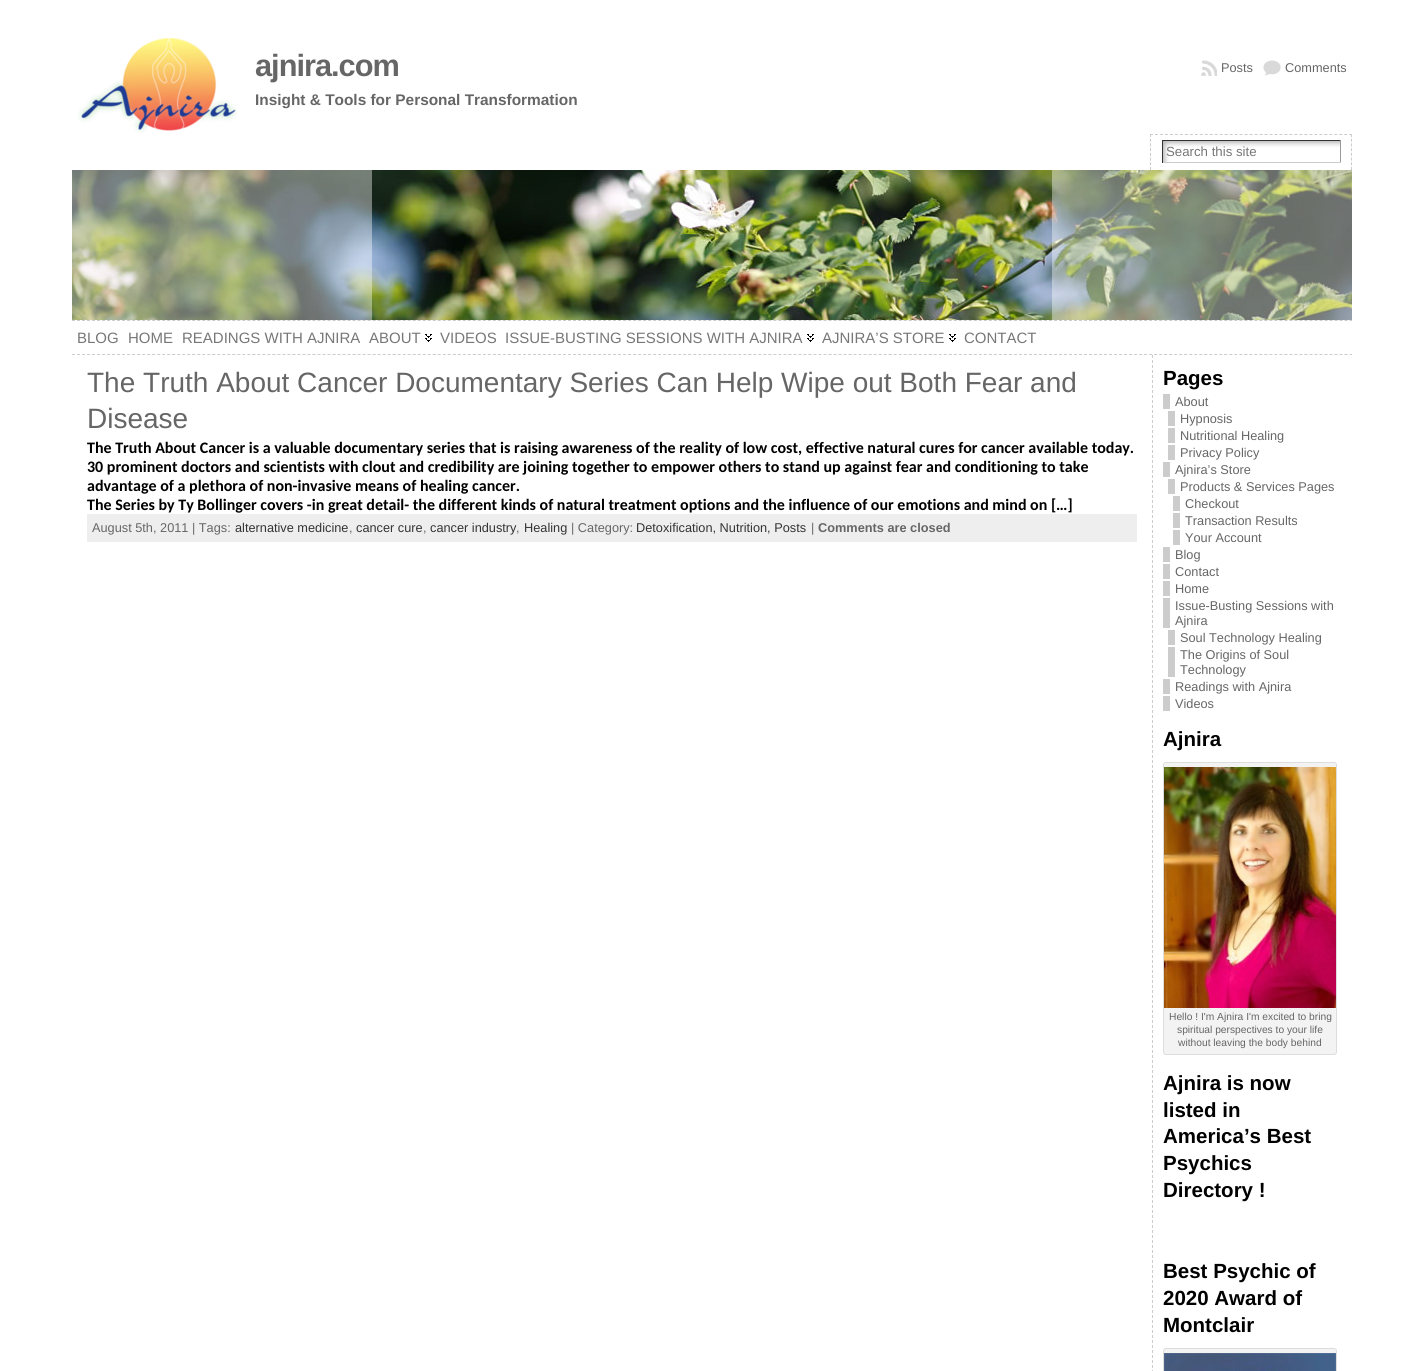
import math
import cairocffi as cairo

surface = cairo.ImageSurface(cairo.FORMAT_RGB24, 1424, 1371)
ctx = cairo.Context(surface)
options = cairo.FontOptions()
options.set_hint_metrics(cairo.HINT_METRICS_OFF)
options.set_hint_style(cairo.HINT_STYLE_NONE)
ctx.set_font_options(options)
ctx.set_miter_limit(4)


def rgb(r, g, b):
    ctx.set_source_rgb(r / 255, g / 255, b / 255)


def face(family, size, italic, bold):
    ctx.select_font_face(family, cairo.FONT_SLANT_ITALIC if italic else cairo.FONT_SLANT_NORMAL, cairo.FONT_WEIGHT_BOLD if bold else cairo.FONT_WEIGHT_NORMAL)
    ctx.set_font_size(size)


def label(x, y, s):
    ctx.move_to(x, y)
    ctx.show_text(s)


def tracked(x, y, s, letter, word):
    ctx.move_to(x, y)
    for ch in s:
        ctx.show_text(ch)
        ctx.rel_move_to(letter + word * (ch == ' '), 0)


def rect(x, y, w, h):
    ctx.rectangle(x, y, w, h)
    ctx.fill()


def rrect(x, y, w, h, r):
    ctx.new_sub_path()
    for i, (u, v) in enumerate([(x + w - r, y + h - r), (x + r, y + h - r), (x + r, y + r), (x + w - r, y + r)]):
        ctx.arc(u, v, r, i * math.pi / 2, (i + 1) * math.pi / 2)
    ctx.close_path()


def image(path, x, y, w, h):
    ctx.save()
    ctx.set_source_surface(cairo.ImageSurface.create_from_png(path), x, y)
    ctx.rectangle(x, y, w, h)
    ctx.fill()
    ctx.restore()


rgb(255, 255, 255)
ctx.paint()
image('image0.png', 78, 38, 160, 95)
face('Liberation Sans', 30.75, 0, 1)
rgb(102, 102, 102)
tracked(255, 76, 'ajnira.com', -1, 0)
face('Liberation Sans', 15.4, 0, 1)
label(255, 105, 'Insight & Tools for Personal Transformation')
image('image1.png', 1201, 60, 16, 16)
face('Liberation Sans', 12.75, 0, 0)
label(1221, 72, 'Posts')
image('image2.png', 1263, 60, 18, 16)
label(1285, 72, 'Comments')
ctx.new_path()
ctx.move_to(1150, 134.5)
ctx.line_to(1352, 134.5)
rgb(204, 204, 204)
ctx.set_line_width(1)
ctx.set_dash([3, 1.98])
ctx.stroke()
ctx.new_path()
ctx.move_to(1351.5, 134)
ctx.line_to(1351.5, 170)
ctx.set_dash([3, 1.71])
ctx.stroke()
ctx.new_path()
ctx.move_to(1150.5, 134)
ctx.line_to(1150.5, 170)
ctx.stroke()
image('image3.png', 1163, 141, 177, 21)
rgb(51, 51, 51)
rect(1162, 140, 179, 1)
rgb(153, 153, 153)
rect(1340, 140, 1, 23)
rgb(204, 204, 204)
rect(1162, 162, 179, 1)
rgb(51, 51, 51)
rect(1162, 140, 1, 23)
face('Liberation Sans', 13.25, 0, 0)
rgb(119, 119, 119)
label(1166, 156, 'Search this site')
image('image4.png', 72, 170, 1280, 150)
ctx.set_source_rgba(1, 1, 1, 0.4)
rect(72, 170, 300, 150)
rect(1052, 170, 300, 150)
ctx.new_path()
ctx.move_to(72, 320.5)
ctx.line_to(1352, 320.5)
rgb(204, 204, 204)
ctx.set_dash([3, 2.01])
ctx.stroke()
face('Liberation Sans', 15, 0, 0)
rgb(119, 119, 119)
label(77, 343, 'BLOG')
label(128, 343, 'HOME')
label(182, 343, 'READINGS WITH AJNIRA')
image('image5.png', 425, 334, 7, 8)
label(369, 343, 'ABOUT')
label(440, 343, 'VIDEOS')
image('image5.png', 807, 334, 7, 8)
label(505, 343, 'ISSUE-BUSTING SESSIONS WITH AJNIRA')
image('image5.png', 949, 334, 7, 8)
label(822, 343, 'AJNIRA’S STORE')
label(964, 343, 'CONTACT')
ctx.new_path()
ctx.move_to(72, 354.5)
ctx.line_to(1352, 354.5)
rgb(204, 204, 204)
ctx.stroke()
face('Liberation Sans', 28, 0, 0)
rgb(102, 102, 102)
label(87, 392, 'The Truth About Cancer Documentary Series Can Help Wipe out Both Fear and')
label(87, 428, 'Disease')
face('Carlito', 16, 0, 1)
rgb(0, 0, 0)
label(87, 453, 'The Truth About Cancer is a valuable documentary series that is raising awareness of the reality of low cost, effective natural cures for cancer available today.')
label(87, 472, '30 prominent doctors and scientists with clout and credibility are joining together to empower others to stand up against fear and conditioning to take')
label(87, 491, 'advantage of a plethora of non-invasive means of healing cancer.')
label(87, 510, 'The Series by Ty Bollinger covers -in great detail- the different kinds of natural treatment options and the influence of our emotions and mind on […]')
rgb(238, 238, 238)
rect(87, 514, 1050, 28)
face('Liberation Sans', 12.75, 0, 0)
rgb(102, 102, 102)
label(92, 532, 'August 5th, 2011 | Tags:')
rgb(51, 51, 51)
label(235, 532, 'alternative medicine')
rgb(102, 102, 102)
label(349, 532, ',')
rgb(51, 51, 51)
label(356, 532, 'cancer cure')
rgb(102, 102, 102)
label(423, 532, ',')
rgb(51, 51, 51)
label(430, 532, 'cancer industry')
rgb(102, 102, 102)
label(516, 532, ',')
rgb(51, 51, 51)
label(524, 532, 'Healing')
rgb(102, 102, 102)
label(571, 532, '| Category:')
rgb(51, 51, 51)
label(636, 532, 'Detoxification, Nutrition, Posts')
rgb(102, 102, 102)
label(811, 532, '|')
face('Liberation Sans', 12.75, 0, 1)
label(818, 532, 'Comments are closed')
ctx.new_path()
ctx.move_to(1152.5, 355)
ctx.line_to(1152.5, 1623)
rgb(204, 204, 204)
ctx.set_dash([3, 2])
ctx.stroke()
face('Liberation Sans', 20.5, 0, 1)
rgb(0, 0, 0)
label(1163, 385, 'Pages')
rgb(204, 204, 204)
rect(1163, 394, 7, 15)
face('Liberation Sans', 12.75, 0, 0)
rgb(102, 102, 102)
label(1175, 406, 'About')
rgb(204, 204, 204)
rect(1168, 411, 7, 15)
rgb(102, 102, 102)
label(1180, 423, 'Hypnosis')
rgb(204, 204, 204)
rect(1168, 428, 7, 15)
rgb(102, 102, 102)
label(1180, 440, 'Nutritional Healing')
rgb(204, 204, 204)
rect(1168, 445, 7, 15)
rgb(102, 102, 102)
label(1180, 457, 'Privacy Policy')
rgb(204, 204, 204)
rect(1163, 462, 7, 15)
rgb(102, 102, 102)
label(1175, 474, 'Ajnira’s Store')
rgb(204, 204, 204)
rect(1168, 479, 7, 15)
rgb(102, 102, 102)
label(1180, 491, 'Products & Services Pages')
rgb(204, 204, 204)
rect(1173, 496, 7, 15)
rgb(102, 102, 102)
label(1185, 508, 'Checkout')
rgb(204, 204, 204)
rect(1173, 513, 7, 15)
rgb(102, 102, 102)
label(1185, 525, 'Transaction Results')
rgb(204, 204, 204)
rect(1173, 530, 7, 15)
rgb(102, 102, 102)
label(1185, 542, 'Your Account')
rgb(204, 204, 204)
rect(1163, 547, 7, 15)
rgb(102, 102, 102)
label(1175, 559, 'Blog')
rgb(204, 204, 204)
rect(1163, 564, 7, 15)
rgb(102, 102, 102)
label(1175, 576, 'Contact')
rgb(204, 204, 204)
rect(1163, 581, 7, 15)
rgb(102, 102, 102)
label(1175, 593, 'Home')
rgb(204, 204, 204)
rect(1163, 598, 7, 30)
rgb(102, 102, 102)
label(1175, 610, 'Issue-Busting Sessions with')
label(1175, 625, 'Ajnira')
rgb(204, 204, 204)
rect(1168, 630, 7, 15)
rgb(102, 102, 102)
label(1180, 642, 'Soul Technology Healing')
rgb(204, 204, 204)
rect(1168, 647, 7, 30)
rgb(102, 102, 102)
label(1180, 659, 'The Origins of Soul')
label(1180, 674, 'Technology')
rgb(204, 204, 204)
rect(1163, 679, 7, 15)
rgb(102, 102, 102)
label(1175, 691, 'Readings with Ajnira')
rgb(204, 204, 204)
rect(1163, 696, 7, 15)
rgb(102, 102, 102)
label(1175, 708, 'Videos')
face('Liberation Sans', 20.5, 0, 1)
rgb(0, 0, 0)
label(1163, 746, 'Ajnira')
rgb(243, 243, 243)
rrect(1163.5, 762.5, 173, 292, 2.5)
ctx.fill_preserve()
rgb(221, 221, 221)
ctx.set_dash([])
ctx.stroke()
image('image6.png', 1164, 767, 172, 241)
face('Liberation Sans', 10.25, 0, 0)
rgb(102, 102, 102)
label(1169, 1020, 'Hello ! I\'m Ajnira I\'m excited to bring')
label(1177, 1033, 'spiritual perspectives to your life')
label(1178, 1046, 'without leaving the body behind')
face('Liberation Sans', 20.5, 0, 1)
rgb(0, 0, 0)
label(1163, 1090, 'Ajnira is now')
label(1163, 1117, 'listed in')
label(1163, 1143, 'America’s Best')
label(1163, 1170, 'Psychics')
label(1163, 1197, 'Directory !')
label(1163, 1278, 'Best Psychic of')
label(1163, 1305, '2020 Award of')
label(1163, 1332, 'Montclair')
rgb(243, 243, 243)
rrect(1163.5, 1348.5, 173, 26, 2.5)
ctx.fill_preserve()
rgb(221, 221, 221)
ctx.stroke()
image('image7.png', 1164, 1353, 172, 18)
surface.write_to_png('render.png')
